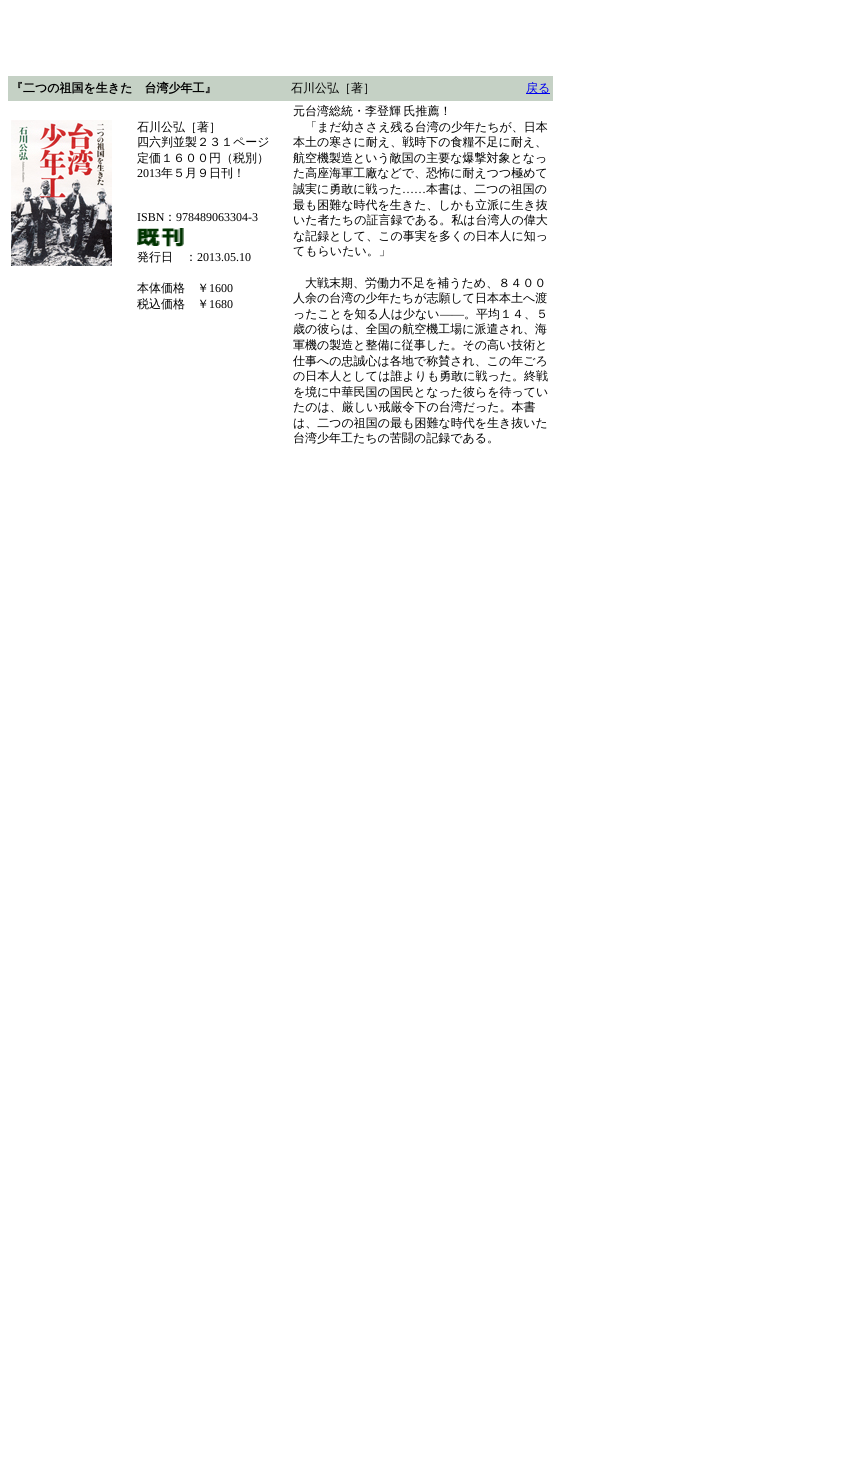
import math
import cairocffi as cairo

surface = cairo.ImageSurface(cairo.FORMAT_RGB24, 841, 1463)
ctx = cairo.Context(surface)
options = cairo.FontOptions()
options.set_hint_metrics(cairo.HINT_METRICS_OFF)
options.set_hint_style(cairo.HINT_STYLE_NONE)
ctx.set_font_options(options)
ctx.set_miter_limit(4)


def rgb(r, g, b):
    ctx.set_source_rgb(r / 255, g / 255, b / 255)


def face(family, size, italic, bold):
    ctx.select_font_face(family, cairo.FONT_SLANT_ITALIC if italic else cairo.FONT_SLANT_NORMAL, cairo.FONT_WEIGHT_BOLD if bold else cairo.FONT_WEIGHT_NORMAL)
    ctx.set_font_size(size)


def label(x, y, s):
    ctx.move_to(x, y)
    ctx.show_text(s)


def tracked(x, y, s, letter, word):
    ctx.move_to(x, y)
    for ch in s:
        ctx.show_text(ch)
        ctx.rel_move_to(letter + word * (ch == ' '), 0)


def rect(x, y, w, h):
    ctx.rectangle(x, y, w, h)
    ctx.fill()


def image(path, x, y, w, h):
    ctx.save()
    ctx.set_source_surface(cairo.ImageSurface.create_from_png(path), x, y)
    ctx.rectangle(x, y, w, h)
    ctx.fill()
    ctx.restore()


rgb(255, 255, 255)
ctx.paint()
rgb(197, 209, 197)
rect(8, 76, 545, 25)
face('WenQuanYi Zen Hei', 12, 0, 1)
rgb(0, 0, 0)
label(11, 92, '『二つの祖国を生きた　台湾少年工』')
face('WenQuanYi Zen Hei Medium', 12, 0, 0)
label(291, 92, '石川公弘［著］')
rgb(0, 0, 238)
rect(526, 93, 24, 1)
label(526, 92, '戻る')
image('image0.png', 11, 120, 101, 146)
rgb(0, 0, 0)
label(137, 131, '石川公弘［著］')
label(137, 146, '四六判並製２３１ページ')
label(137, 162, '定価１６００円（税別）')
face('Liberation Serif', 12, 0, 0)
label(137, 177, '2013')
face('WenQuanYi Zen Hei Medium', 12, 0, 0)
label(161, 177, '年５月９日刊！')
face('Liberation Serif', 12, 0, 0)
label(137, 221, 'ISBN')
face('WenQuanYi Zen Hei Medium', 12, 0, 0)
label(164, 221, '：')
face('Liberation Serif', 12, 0, 0)
label(176, 221, '978489063304-3')
image('image1.png', 137, 228, 47, 19)
face('WenQuanYi Zen Hei Medium', 12, 0, 0)
label(137, 261, '発行日　：')
face('Liberation Serif', 12, 0, 0)
label(197, 261, '2013.05.10')
face('WenQuanYi Zen Hei Medium', 12, 0, 0)
label(137, 292, '本体価格　￥')
face('Liberation Serif', 12, 0, 0)
label(209, 292, '1600')
face('WenQuanYi Zen Hei Medium', 12, 0, 0)
label(137, 308, '税込価格　￥')
face('Liberation Serif', 12, 0, 0)
label(209, 308, '1680')
face('WenQuanYi Zen Hei Medium', 12, 0, 0)
tracked(293, 115, '元台湾総統・李登輝 氏推薦！', 0, -1)
label(305, 131, '「まだ幼ささえ残る台湾の少年たちが、日本')
label(293, 146, '本土の寒さに耐え、戦時下の食糧不足に耐え、')
label(293, 162, '航空機製造という敵国の主要な爆撃対象となっ')
label(293, 177, 'た高座海軍工廠などで、恐怖に耐えつつ極めて')
label(293, 193, '誠実に勇敢に戦った')
face('Liberation Serif', 12, 0, 0)
label(402, 193, '……')
face('WenQuanYi Zen Hei Medium', 12, 0, 0)
label(426, 193, '本書は、二つの祖国の')
label(293, 209, '最も困難な時代を生きた、しかも立派に生き抜')
label(293, 224, 'いた者たちの証言録である。私は台湾人の偉大')
label(293, 240, 'な記録として、この事実を多くの日本人に知っ')
label(293, 255, 'てもらいたい。」')
label(305, 287, '大戦末期、労働力不足を補うため、８４００')
label(293, 302, '人余の台湾の少年たちが志願して日本本土へ渡')
label(293, 318, 'ったことを知る人は少ない')
face('Liberation Serif', 12, 0, 0)
label(440, 318, '――')
face('WenQuanYi Zen Hei Medium', 12, 0, 0)
label(464, 318, '。平均１４、５')
label(293, 333, '歳の彼らは、全国の航空機工場に派遣され、海')
label(293, 349, '軍機の製造と整備に従事した。その高い技術と')
label(293, 365, '仕事への忠誠心は各地で称賛され、この年ごろ')
label(293, 380, 'の日本人としては誰よりも勇敢に戦った。終戦')
label(293, 396, 'を境に中華民国の国民となった彼らを待ってい')
label(293, 411, 'たのは、厳しい戒厳令下の台湾だった。本書')
label(293, 427, 'は、二つの祖国の最も困難な時代を生き抜いた')
label(293, 442, '台湾少年工たちの苦闘の記録である。')
surface.write_to_png('render.png')
